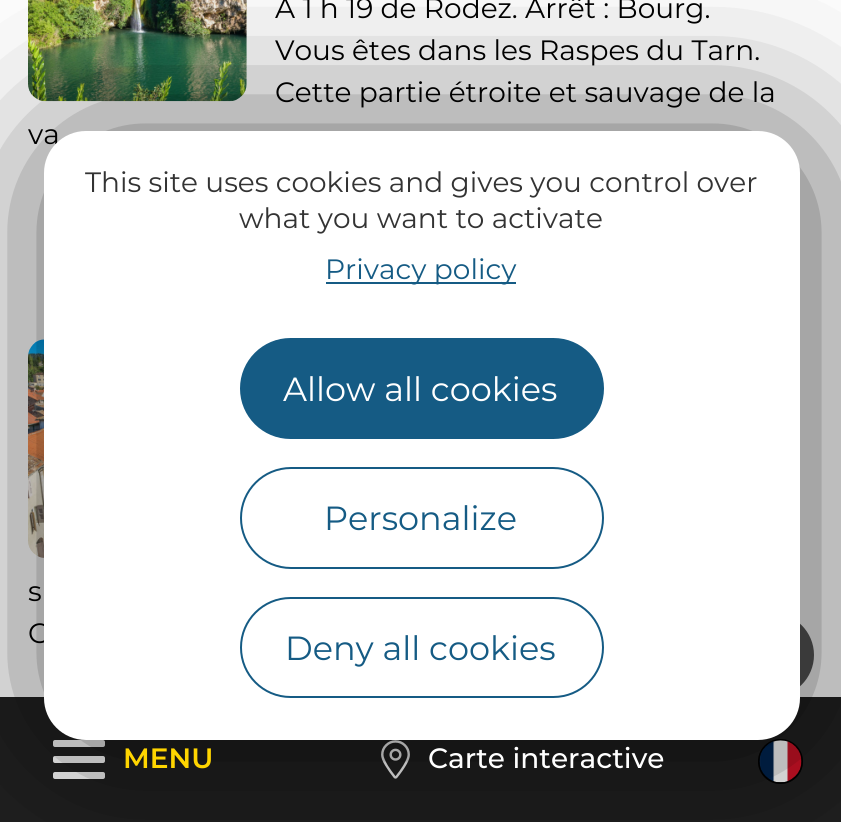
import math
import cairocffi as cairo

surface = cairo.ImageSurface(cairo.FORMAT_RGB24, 841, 822)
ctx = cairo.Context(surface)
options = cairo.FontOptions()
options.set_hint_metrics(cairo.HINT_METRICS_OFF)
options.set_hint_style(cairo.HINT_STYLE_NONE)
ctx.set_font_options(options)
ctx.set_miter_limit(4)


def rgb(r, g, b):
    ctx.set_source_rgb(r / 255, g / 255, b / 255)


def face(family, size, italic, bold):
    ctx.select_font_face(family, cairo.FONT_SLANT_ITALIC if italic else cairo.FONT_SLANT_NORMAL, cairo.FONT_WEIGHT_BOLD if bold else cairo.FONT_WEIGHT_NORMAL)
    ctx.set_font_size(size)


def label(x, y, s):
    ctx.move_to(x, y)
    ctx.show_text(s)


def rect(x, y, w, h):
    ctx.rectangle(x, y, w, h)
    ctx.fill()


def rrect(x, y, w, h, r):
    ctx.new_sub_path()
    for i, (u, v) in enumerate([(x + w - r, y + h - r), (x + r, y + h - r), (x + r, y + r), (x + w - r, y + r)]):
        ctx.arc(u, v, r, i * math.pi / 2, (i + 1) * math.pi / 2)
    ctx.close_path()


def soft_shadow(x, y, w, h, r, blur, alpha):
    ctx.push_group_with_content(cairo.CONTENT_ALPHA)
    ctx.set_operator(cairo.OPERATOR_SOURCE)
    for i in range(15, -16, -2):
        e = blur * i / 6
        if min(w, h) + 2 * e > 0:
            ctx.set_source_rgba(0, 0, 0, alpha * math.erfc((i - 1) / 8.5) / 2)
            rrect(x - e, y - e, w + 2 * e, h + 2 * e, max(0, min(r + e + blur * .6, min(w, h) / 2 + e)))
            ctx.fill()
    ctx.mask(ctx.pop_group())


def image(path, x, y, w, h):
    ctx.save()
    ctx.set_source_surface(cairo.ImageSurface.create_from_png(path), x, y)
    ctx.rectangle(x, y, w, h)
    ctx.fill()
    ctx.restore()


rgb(255, 255, 255)
ctx.paint()
face('Montserrat', 28, 0, 0)
rgb(0, 0, 0)
label(275, 18, 'A 1 h 19 de Rodez. Arrêt : Bourg.')
label(275, 60, 'Vous êtes dans les Raspes du Tarn.')
label(275, 102, 'Cette partie étroite et sauvage de la')
label(28, 144, 'va')
image('image0.png', 28, 0, 219, 102)
image('image1.png', 28, 339, 16, 219)
label(28, 601, 's')
label(28, 643, 'C')
rgb(89, 89, 89)
ctx.new_path()
ctx.arc(772, 655, 42, 0, 2 * math.pi)
ctx.fill()
rgb(32, 32, 32)
rect(0, 697, 841, 125)
rgb(255, 255, 255)
rrect(53, 740, 52, 7, 2)
ctx.fill()
rrect(53, 756, 52, 7, 2)
ctx.fill()
rrect(53, 772, 52, 7, 2)
ctx.fill()
image('image2.png', 381, 740, 29, 39)
rgb(0, 0, 0)
ctx.arc(780.5, 761.5, 22.5, 0, 2 * math.pi)
ctx.fill()
ctx.arc(780.5, 761.5, 21.5, 0, 2 * math.pi)
ctx.set_source_rgba(0, 0, 0, 0.4)
ctx.stroke()
image('image3.png', 759, 740, 43, 43)
rgb(0, 0, 0)
soft_shadow(51, 138, 756, 609, 42, 87.5, 0.7)
rgb(255, 255, 255)
rrect(44, 131, 756, 609, 42)
ctx.fill()
rgb(51, 51, 51)
label(85, 192, 'This site uses cookies and gives you control over')
label(239, 228, 'what you want to activate')
rgb(21, 91, 132)
rect(326, 282, 190, 2)
label(325, 279, 'Privacy policy')
rrect(241, 339, 362, 99, 49.5)
ctx.fill_preserve()
ctx.stroke()
face('Montserrat', 33.5, 0, 0)
rgb(255, 255, 255)
label(283, 401, 'Allow all cookies')
rrect(241, 468, 362, 100, 50)
rgb(21, 91, 132)
ctx.stroke()
label(324, 530, 'Personalize')
rrect(241, 598, 362, 99, 49.5)
ctx.stroke()
label(285, 660, 'Deny all cookies')
face('Montserrat SemiBold', 28, 0, 0)
rgb(255, 213, 0)
label(123, 768, 'MENU')
face('Montserrat Medium', 28, 0, 0)
rgb(255, 255, 255)
label(428, 768, 'Carte interactive')
surface.write_to_png('render.png')
